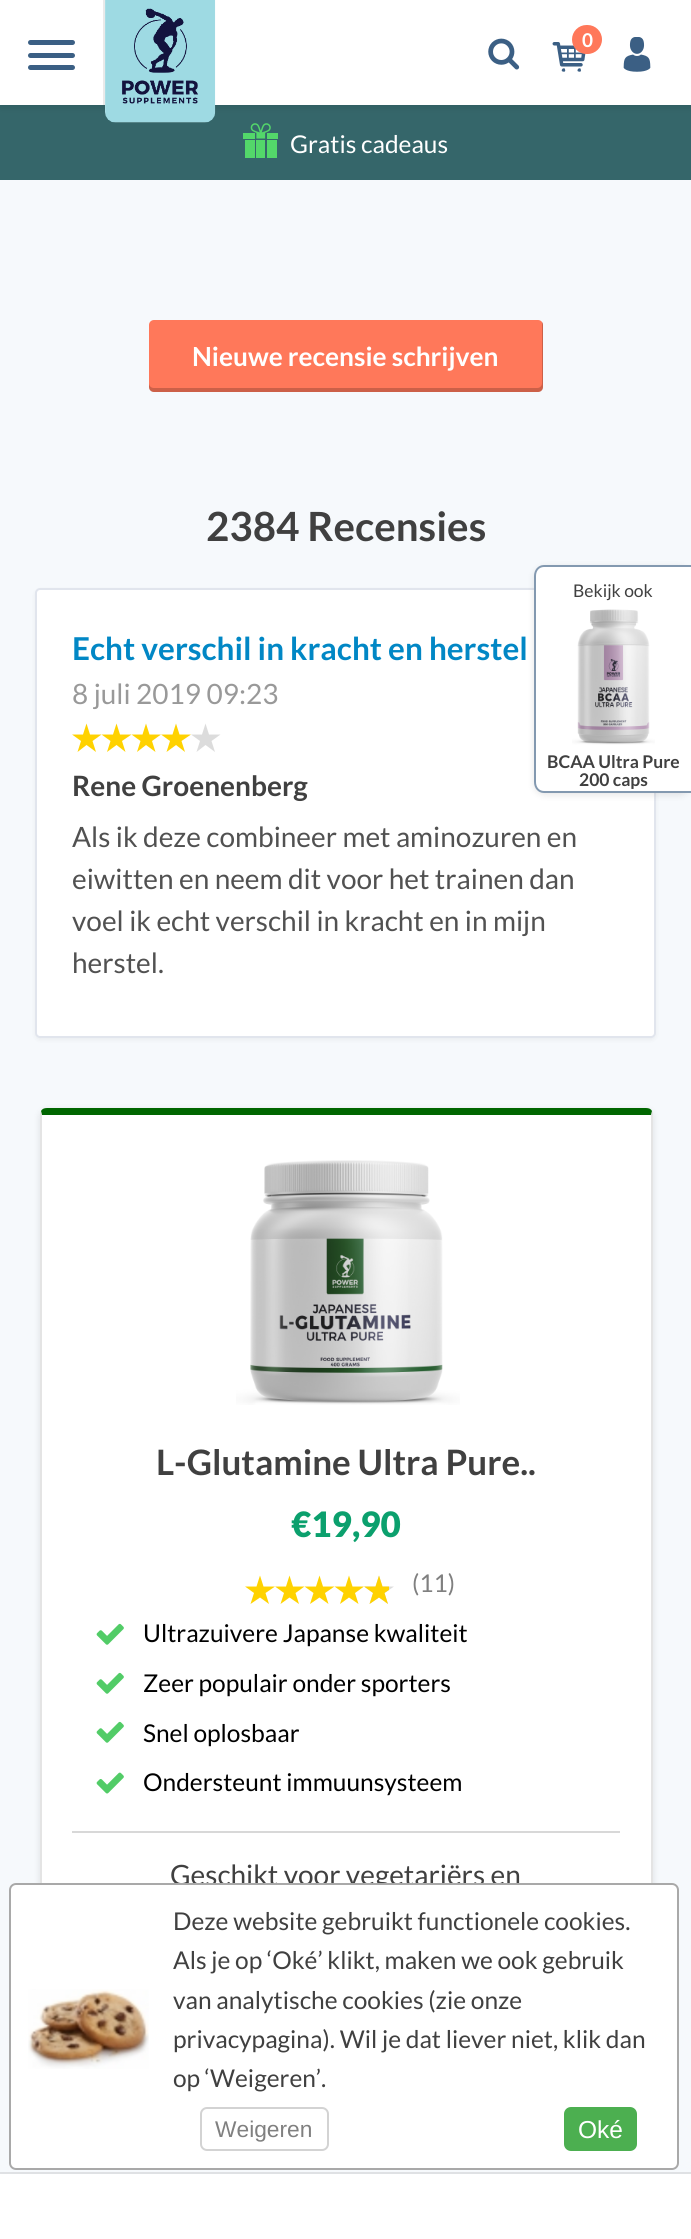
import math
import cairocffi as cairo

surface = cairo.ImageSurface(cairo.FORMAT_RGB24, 691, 2239)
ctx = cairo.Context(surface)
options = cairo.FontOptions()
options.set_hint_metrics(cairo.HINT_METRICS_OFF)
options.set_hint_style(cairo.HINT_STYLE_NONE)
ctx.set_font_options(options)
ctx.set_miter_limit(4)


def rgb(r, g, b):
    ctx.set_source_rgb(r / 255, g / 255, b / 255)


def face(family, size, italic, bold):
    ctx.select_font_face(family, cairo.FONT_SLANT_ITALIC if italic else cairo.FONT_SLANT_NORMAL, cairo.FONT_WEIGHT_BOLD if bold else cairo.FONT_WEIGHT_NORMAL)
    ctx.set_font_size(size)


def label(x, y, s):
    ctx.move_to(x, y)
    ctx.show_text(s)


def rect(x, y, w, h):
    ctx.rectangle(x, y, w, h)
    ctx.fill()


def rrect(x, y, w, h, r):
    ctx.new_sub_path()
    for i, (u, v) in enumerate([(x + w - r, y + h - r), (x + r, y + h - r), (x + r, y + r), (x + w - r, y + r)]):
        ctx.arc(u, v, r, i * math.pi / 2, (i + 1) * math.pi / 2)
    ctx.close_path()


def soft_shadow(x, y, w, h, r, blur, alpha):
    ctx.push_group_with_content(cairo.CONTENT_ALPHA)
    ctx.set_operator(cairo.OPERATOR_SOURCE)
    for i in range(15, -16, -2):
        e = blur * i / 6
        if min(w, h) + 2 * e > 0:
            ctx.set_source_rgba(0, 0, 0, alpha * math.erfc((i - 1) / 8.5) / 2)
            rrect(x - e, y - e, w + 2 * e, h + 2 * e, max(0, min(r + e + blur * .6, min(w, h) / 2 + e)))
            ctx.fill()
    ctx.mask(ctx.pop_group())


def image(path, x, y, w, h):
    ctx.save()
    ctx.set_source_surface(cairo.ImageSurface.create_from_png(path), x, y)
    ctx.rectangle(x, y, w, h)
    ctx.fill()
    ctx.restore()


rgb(246, 249, 252)
ctx.paint()
rgb(53, 102, 106)
rect(0, 105, 691, 75)
rgb(0, 0, 0)
soft_shadow(0, 2, 691, 105, 0, 3.5, 0.1)
rgb(255, 255, 255)
rect(0, 0, 691, 105)
rgb(234, 234, 234)
rect(103, 0, 2, 105)
rgb(59, 95, 132)
rrect(28, 53, 47, 5, 2.5)
ctx.fill()
rrect(28, 40, 47, 5, 2.5)
ctx.fill()
rrect(28, 65, 47, 5, 2.5)
ctx.fill()
image('image0.png', 105, 0, 111, 123)
image('image1.png', 488, 38, 32, 32)
image('image2.png', 552, 42, 34, 30)
rgb(255, 120, 90)
rrect(572, 25, 30, 29, 14.5)
ctx.fill()
face('Lato', 19, 0, 1)
rgb(255, 255, 255)
label(582, 47, '0')
image('image3.png', 623, 37, 28, 35)
image('image4.png', 243, 123, 35, 35)
face('Lato', 24.5, 0, 0)
label(290, 153, 'Gratis cadeaus')
rgb(255, 120, 90)
rrect(149, 320, 394, 72, 5)
ctx.fill()
ctx.set_source_rgba(0, 0, 0, 0.2)
ctx.new_path()
ctx.move_to(149, 383)
ctx.line_to(149, 387)
ctx.curve_to(149, 390, 151, 392, 154, 392)
ctx.line_to(538, 392)
ctx.curve_to(541, 392, 543, 390, 543, 387)
ctx.line_to(543, 325)
ctx.curve_to(543, 324, 543, 323, 542, 322)
ctx.line_to(542, 383)
ctx.curve_to(542, 386, 540, 388, 537, 388)
ctx.line_to(154, 388)
ctx.curve_to(151, 388, 149, 386, 149, 383)
ctx.close_path()
ctx.fill()
face('Lato', 26.25, 0, 1)
rgb(255, 255, 255)
label(192, 366, 'Nieuwe recensie schrijven')
face('Lato', 40.25, 0, 1)
rgb(64, 64, 64)
label(206, 541, '2384 Recensies')
rgb(0, 0, 0)
soft_shadow(35, 590, 621, 450, 5, 2, 0.05)
rgb(255, 255, 255)
rrect(35, 588, 621, 450, 5)
ctx.fill()
rrect(36, 589, 619, 448, 4)
ctx.set_source_rgba(0, 0.157, 0.392, 0.12)
ctx.stroke()
face('Lato', 31.5, 0, 1)
rgb(1, 135, 197)
label(72, 660, 'Echt verschil in kracht en herstel')
face('Lato', 28, 0, 0)
rgb(153, 153, 153)
label(72, 704, '8 juli 2019 09:23')
rgb(255, 210, 0)
ctx.new_path()
ctx.move_to(86.5, 723.5)
ctx.line_to(90, 734.5)
ctx.line_to(101.5, 734.5)
ctx.line_to(92.5, 741)
ctx.line_to(96, 752)
ctx.line_to(86.5, 745)
ctx.line_to(77.5, 752)
ctx.line_to(81, 741)
ctx.line_to(72, 734.5)
ctx.line_to(83, 734.5)
ctx.close_path()
ctx.move_to(116.5, 723.5)
ctx.line_to(120, 734.5)
ctx.line_to(131.5, 734.5)
ctx.line_to(122, 741)
ctx.line_to(125.5, 752)
ctx.line_to(116.5, 745)
ctx.line_to(107, 752)
ctx.line_to(110.5, 741)
ctx.line_to(101.5, 734.5)
ctx.line_to(113, 734.5)
ctx.close_path()
ctx.fill()
ctx.new_path()
ctx.move_to(146, 723.5)
ctx.line_to(149.5, 734.5)
ctx.line_to(161, 734.5)
ctx.line_to(152, 741)
ctx.line_to(155.5, 752)
ctx.line_to(146, 745)
ctx.line_to(137, 752)
ctx.line_to(140.5, 741)
ctx.line_to(131.5, 734.5)
ctx.line_to(142.5, 734.5)
ctx.close_path()
ctx.move_to(176, 723.5)
ctx.line_to(179.5, 734.5)
ctx.line_to(191, 734.5)
ctx.line_to(181.5, 741)
ctx.line_to(185, 752)
ctx.line_to(176, 745)
ctx.line_to(166.5, 752)
ctx.line_to(170, 741)
ctx.line_to(161, 734.5)
ctx.line_to(172.5, 734.5)
ctx.close_path()
ctx.fill()
rgb(220, 220, 220)
ctx.new_path()
ctx.move_to(205.5, 723.5)
ctx.line_to(209, 734.5)
ctx.line_to(220.5, 734.5)
ctx.line_to(211.5, 741)
ctx.line_to(215, 752)
ctx.line_to(205.5, 745)
ctx.line_to(196.5, 752)
ctx.line_to(200, 741)
ctx.line_to(191, 734.5)
ctx.line_to(202, 734.5)
ctx.close_path()
ctx.fill()
face('Lato', 28, 0, 1)
rgb(64, 64, 64)
label(72, 796, 'Rene Groenenberg')
face('Lato', 28, 0, 0)
rgb(81, 81, 81)
label(72, 847, 'Als ik deze combineer met aminozuren en')
label(72, 889, 'eiwitten en neem dit voor het trainen dan')
label(72, 931, 'voel ik echt verschil in kracht en in mijn')
label(72, 973, 'herstel.')
rgb(0, 0, 0)
soft_shadow(40, 1110, 613, 959, 7, 3.5, 0.1)
rgb(255, 255, 255)
rrect(40, 1108, 613, 959, 7)
ctx.fill()
rgb(0, 102, 0)
ctx.new_path()
ctx.move_to(47, 1108)
ctx.curve_to(44, 1108, 42, 1109, 41, 1111)
ctx.line_to(42, 1115)
ctx.line_to(651, 1115)
ctx.line_to(652, 1111)
ctx.curve_to(651, 1109, 649, 1108, 646, 1108)
ctx.close_path()
ctx.fill()
ctx.set_source_rgba(0.686, 0.686, 0.686, 0.33)
ctx.new_path()
ctx.move_to(653, 2062)
ctx.line_to(651, 2065)
ctx.line_to(650, 2064)
ctx.curve_to(650, 2063, 651, 2062, 651, 2060)
ctx.line_to(651, 1115)
ctx.line_to(652, 1111)
ctx.line_to(653, 1113)
ctx.close_path()
ctx.fill()
ctx.new_path()
ctx.move_to(40, 1113)
ctx.line_to(41, 1111)
ctx.line_to(42, 1115)
ctx.line_to(42, 2060)
ctx.curve_to(42, 2062, 42, 2063, 43, 2064)
ctx.line_to(42, 2065)
ctx.line_to(40, 2062)
ctx.close_path()
ctx.fill()
image('image5.png', 236, 1160, 224, 245)
face('Lato', 35, 0, 1)
rgb(64, 64, 64)
label(156, 1475, 'L-Glutamine Ultra Pure..')
face('Lato Black', 35, 0, 0)
rgb(11, 160, 109)
label(291, 1537, '€19,90')
rgb(255, 210, 0)
ctx.new_path()
ctx.move_to(260, 1575.5)
ctx.line_to(263.5, 1586.5)
ctx.line_to(275, 1586.5)
ctx.line_to(265.5, 1593)
ctx.line_to(269, 1604)
ctx.line_to(260, 1597.5)
ctx.line_to(250.5, 1604)
ctx.line_to(254, 1593)
ctx.line_to(245, 1586.5)
ctx.line_to(256.5, 1586.5)
ctx.close_path()
ctx.move_to(289.5, 1575.5)
ctx.line_to(293, 1586.5)
ctx.line_to(304.5, 1586.5)
ctx.line_to(295.5, 1593)
ctx.line_to(299, 1604)
ctx.line_to(289.5, 1597.5)
ctx.line_to(280.5, 1604)
ctx.line_to(284, 1593)
ctx.line_to(275, 1586.5)
ctx.line_to(286, 1586.5)
ctx.close_path()
ctx.fill()
ctx.new_path()
ctx.move_to(319.5, 1575.5)
ctx.line_to(323, 1586.5)
ctx.line_to(334.5, 1586.5)
ctx.line_to(325, 1593)
ctx.line_to(328.5, 1604)
ctx.line_to(319.5, 1597.5)
ctx.line_to(310, 1604)
ctx.line_to(313.5, 1593)
ctx.line_to(304.5, 1586.5)
ctx.line_to(316, 1586.5)
ctx.close_path()
ctx.move_to(349, 1575.5)
ctx.line_to(352.5, 1586.5)
ctx.line_to(364, 1586.5)
ctx.line_to(355, 1593)
ctx.line_to(358.5, 1604)
ctx.line_to(349, 1597.5)
ctx.line_to(340, 1604)
ctx.line_to(343.5, 1593)
ctx.line_to(334.5, 1586.5)
ctx.line_to(345.5, 1586.5)
ctx.close_path()
ctx.fill()
rgb(220, 220, 220)
ctx.new_path()
ctx.move_to(379, 1575.5)
ctx.line_to(382.5, 1586.5)
ctx.line_to(394, 1586.5)
ctx.line_to(384.5, 1593)
ctx.line_to(388, 1604)
ctx.line_to(379, 1597.5)
ctx.line_to(369.5, 1604)
ctx.line_to(373, 1593)
ctx.line_to(364, 1586.5)
ctx.line_to(375.5, 1586.5)
ctx.close_path()
ctx.fill()
ctx.save()
ctx.rectangle(364, 1575, 25, 30)
ctx.clip()
rgb(255, 210, 0)
ctx.new_path()
ctx.move_to(379, 1575.5)
ctx.line_to(382.5, 1586.5)
ctx.line_to(394, 1586.5)
ctx.line_to(384.5, 1593)
ctx.line_to(388, 1604)
ctx.line_to(379, 1597.5)
ctx.line_to(369.5, 1604)
ctx.line_to(373, 1593)
ctx.line_to(364, 1586.5)
ctx.line_to(375.5, 1586.5)
ctx.close_path()
ctx.fill()
ctx.restore()
face('Lato', 24.5, 0, 0)
rgb(128, 128, 128)
label(412, 1592, '(11)')
image('image6.png', 96, 1623, 28, 22)
rgb(0, 0, 0)
label(143, 1642, 'Ultrazuivere Japanse kwaliteit')
image('image6.png', 96, 1672, 28, 22)
label(143, 1692, 'Zeer populair onder sporters')
image('image6.png', 96, 1721, 28, 22)
label(143, 1742, 'Snel oplosbaar')
image('image7.png', 96, 1772, 28, 22)
label(143, 1791, 'Ondersteunt immuunsysteem')
rgb(216, 216, 216)
rect(72, 1831, 548, 2)
face('Lato', 28, 0, 0)
rgb(64, 64, 64)
label(170, 1885, 'Geschikt voor vegetariërs en')
rgb(0, 0, 0)
soft_shadow(534, 567, 157, 228, 11, 3.5, 0.1)
rgb(255, 255, 255)
ctx.new_path()
ctx.move_to(545, 565)
ctx.line_to(691, 565)
ctx.line_to(691, 793)
ctx.line_to(545, 793)
ctx.curve_to(539, 793, 534, 788, 534, 782)
ctx.line_to(534, 576)
ctx.curve_to(534, 570, 539, 565, 545, 565)
ctx.close_path()
ctx.fill()
ctx.set_source_rgba(0.235, 0.369, 0.514, 0.63)
ctx.set_fill_rule(cairo.FILL_RULE_EVEN_ODD)
ctx.new_path()
ctx.move_to(544, 565)
ctx.line_to(691, 565)
ctx.line_to(691, 793)
ctx.line_to(544, 793)
ctx.curve_to(538, 793, 534, 788, 534, 782)
ctx.line_to(534, 576)
ctx.curve_to(534, 570, 538, 565, 544, 565)
ctx.close_path()
ctx.move_to(544, 567)
ctx.line_to(691, 567)
ctx.line_to(691, 791)
ctx.line_to(544, 791)
ctx.curve_to(539, 791, 536, 787, 536, 782)
ctx.line_to(536, 576)
ctx.curve_to(536, 571, 539, 567, 544, 567)
ctx.close_path()
ctx.fill()
face('Lato', 17.5, 0, 0)
rgb(64, 64, 64)
label(573, 597, 'Bekijk ook')
image('image8.png', 572, 609, 83, 136)
face('Lato', 17.5, 0, 1)
label(547, 768, 'BCAA Ultra Pure')
label(579, 786, '200 caps')
rgb(255, 255, 255)
rect(0, 2174, 691, 65)
rgb(223, 225, 228)
rect(0, 2172, 691, 2)
rgb(255, 255, 255)
rrect(9, 1883, 670, 287, 7)
ctx.fill()
image('image9.png', 28, 1989, 121, 80)
rrect(10, 1884, 668, 285, 6)
rgb(169, 169, 169)
ctx.stroke()
face('Lato', 24.5, 0, 0)
rgb(64, 64, 64)
label(173, 1930, 'Deze website gebruikt functionele cookies.')
label(173, 1969, 'Als je op ‘Oké’ klikt, maken we ook gebruik')
label(173, 2009, 'van analytische cookies (zie onze')
label(173, 2048, 'privacypagina). Wil je dat liever niet, klik dan')
label(173, 2087, 'op ‘Weigeren’.')
rrect(201, 2108, 127, 42, 6)
rgb(211, 211, 211)
ctx.stroke()
face('Liberation Sans', 22.75, 0, 0)
rgb(128, 128, 128)
label(215, 2137, 'Weigeren')
rgb(76, 175, 80)
rrect(564, 2107, 73, 44, 7)
ctx.fill()
face('Liberation Sans', 24.5, 0, 0)
rgb(255, 255, 255)
label(578, 2138, 'Oké')
surface.write_to_png('render.png')
